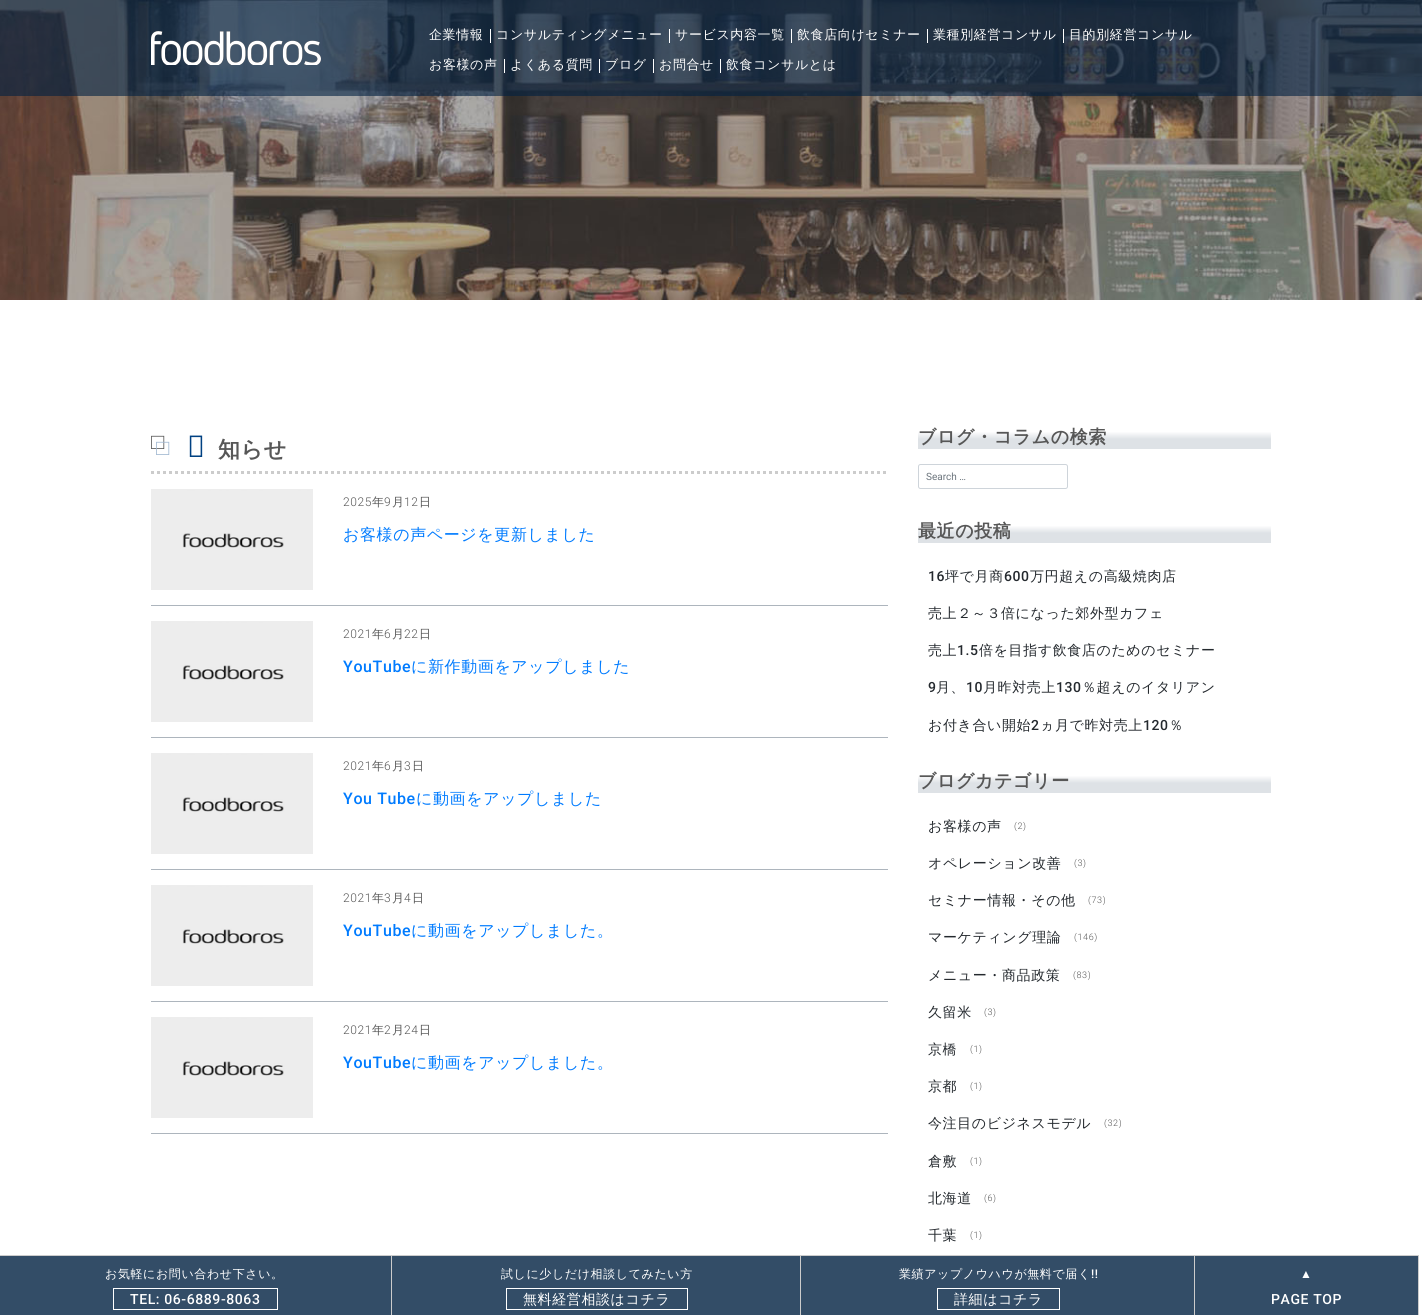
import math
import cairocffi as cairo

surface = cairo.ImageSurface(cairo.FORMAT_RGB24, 1422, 1315)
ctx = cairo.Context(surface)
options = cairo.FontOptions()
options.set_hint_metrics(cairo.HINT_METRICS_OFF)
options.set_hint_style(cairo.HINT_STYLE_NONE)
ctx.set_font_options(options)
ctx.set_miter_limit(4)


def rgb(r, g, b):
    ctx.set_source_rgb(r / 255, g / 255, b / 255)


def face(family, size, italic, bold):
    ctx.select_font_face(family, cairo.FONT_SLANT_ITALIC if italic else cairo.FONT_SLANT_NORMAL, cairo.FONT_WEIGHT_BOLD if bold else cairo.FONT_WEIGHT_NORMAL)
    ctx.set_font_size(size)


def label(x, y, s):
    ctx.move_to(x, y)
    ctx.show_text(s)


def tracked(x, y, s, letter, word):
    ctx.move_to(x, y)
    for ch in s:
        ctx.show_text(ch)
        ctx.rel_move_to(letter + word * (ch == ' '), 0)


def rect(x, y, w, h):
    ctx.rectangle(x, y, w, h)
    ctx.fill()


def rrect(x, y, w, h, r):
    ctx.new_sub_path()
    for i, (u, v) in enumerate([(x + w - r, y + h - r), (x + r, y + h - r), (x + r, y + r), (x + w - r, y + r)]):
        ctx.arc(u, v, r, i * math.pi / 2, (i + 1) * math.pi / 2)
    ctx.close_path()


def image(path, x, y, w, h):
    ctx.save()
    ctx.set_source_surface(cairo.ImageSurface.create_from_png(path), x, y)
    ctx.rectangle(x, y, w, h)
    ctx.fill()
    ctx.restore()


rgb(255, 255, 255)
ctx.paint()
image('image1.png', 0, 0, 1422, 300)
ctx.set_source_rgba(0, 0.129, 0.255, 0.6)
rect(0, 0, 1422, 96)
image('image0.png', 151, 31, 170, 34)
face('WenQuanYi Zen Hei Medium', 13, 0, 0)
rgb(255, 255, 255)
tracked(429, 39, '企業情報', 0.6, 0)
rect(490, 29, 1, 14)
tracked(496, 39, 'コンサルティングメニュー', 0.6, 0)
rect(669, 29, 1, 14)
tracked(675, 39, 'サービス内容一覧', 0.6, 0)
rect(791, 29, 1, 14)
tracked(797, 39, '飲食店向けセミナー', 0.6, 0)
rect(927, 29, 1, 14)
tracked(933, 39, '業種別経営コンサル', 0.6, 0)
rect(1063, 29, 1, 14)
tracked(1069, 39, '目的別経営コンサル', 0.6, 0)
tracked(429, 69, 'お客様の声', 0.6, 0)
rect(504, 59, 1, 14)
tracked(510, 69, 'よくある質問', 0.6, 0)
rect(599, 59, 1, 14)
tracked(605, 69, 'ブログ', 0.6, 0)
rect(653, 59, 1, 14)
tracked(659, 69, 'お問合せ', 0.6, 0)
rect(720, 59, 1, 14)
tracked(726, 69, '飲食コンサルとは', 0.6, 0)
ctx.new_path()
ctx.move_to(151, 472.5)
ctx.line_to(888, 472.5)
rgb(204, 204, 204)
ctx.set_line_width(3)
ctx.set_dash([3, 3])
ctx.stroke()
face('Liberation Sans', 22, 0, 1)
rgb(87, 87, 87)
tracked(151, 449, '□', 0.6, 0)
face('Noto Sans Thin', 30, 0, 0)
rgb(0, 65, 130)
tracked(187, 457, 'お', 0.6, 0)
face('WenQuanYi Zen Hei', 22, 0, 1)
rgb(87, 87, 87)
tracked(218, 457, '知らせ', 0.6, 0)
face('Liberation Sans', 22, 0, 1)
rgb(161, 184, 209)
tracked(156, 455, '□', 0.6, 0)
rgb(173, 181, 189)
rect(151, 605, 737, 1)
image('image2.png', 151, 489, 162, 101)
face('Roboto Light', 12, 0, 0)
rgb(87, 87, 87)
tracked(343, 506, '2025', 0.6, 0)
face('WenQuanYi Zen Hei Medium', 12, 0, 0)
tracked(372, 506, '年', 0.6, 0)
face('Roboto Light', 12, 0, 0)
tracked(384, 506, '9', 0.6, 0)
face('WenQuanYi Zen Hei Medium', 12, 0, 0)
tracked(392, 506, '月', 0.6, 0)
face('Roboto Light', 12, 0, 0)
tracked(404, 506, '12', 0.6, 0)
face('WenQuanYi Zen Hei Medium', 12, 0, 0)
tracked(419, 506, '日', 0.6, 0)
face('WenQuanYi Zen Hei Medium', 16, 0, 0)
rgb(0, 123, 255)
tracked(343, 540, 'お客様の声ページを更新しました', 0.6, 0)
rgb(173, 181, 189)
rect(151, 737, 737, 1)
image('image2.png', 151, 621, 162, 101)
face('Roboto Light', 12, 0, 0)
rgb(87, 87, 87)
tracked(343, 638, '2021', 0.6, 0)
face('WenQuanYi Zen Hei Medium', 12, 0, 0)
tracked(372, 638, '年', 0.6, 0)
face('Roboto Light', 12, 0, 0)
tracked(384, 638, '6', 0.6, 0)
face('WenQuanYi Zen Hei Medium', 12, 0, 0)
tracked(392, 638, '月', 0.6, 0)
face('Roboto Light', 12, 0, 0)
tracked(404, 638, '22', 0.6, 0)
face('WenQuanYi Zen Hei Medium', 12, 0, 0)
tracked(419, 638, '日', 0.6, 0)
face('Roboto Medium', 16, 0, 0)
rgb(0, 123, 255)
tracked(343, 672, 'YouTube', 0.6, 0)
face('WenQuanYi Zen Hei Medium', 16, 0, 0)
tracked(411, 672, 'に新作動画をアップしました', 0.6, 0)
rgb(173, 181, 189)
rect(151, 869, 737, 1)
image('image2.png', 151, 753, 162, 101)
face('Roboto Light', 12, 0, 0)
rgb(87, 87, 87)
tracked(343, 770, '2021', 0.6, 0)
face('WenQuanYi Zen Hei Medium', 12, 0, 0)
tracked(372, 770, '年', 0.6, 0)
face('Roboto Light', 12, 0, 0)
tracked(384, 770, '6', 0.6, 0)
face('WenQuanYi Zen Hei Medium', 12, 0, 0)
tracked(392, 770, '月', 0.6, 0)
face('Roboto Light', 12, 0, 0)
tracked(404, 770, '3', 0.6, 0)
face('WenQuanYi Zen Hei Medium', 12, 0, 0)
tracked(412, 770, '日', 0.6, 0)
face('Roboto Medium', 16, 0, 0)
rgb(0, 123, 255)
tracked(343, 804, 'You Tube', 0.6, 0)
face('WenQuanYi Zen Hei Medium', 16, 0, 0)
tracked(416, 804, 'に動画をアップしました', 0.6, 0)
rgb(173, 181, 189)
rect(151, 1001, 737, 1)
image('image2.png', 151, 885, 162, 101)
face('Roboto Light', 12, 0, 0)
rgb(87, 87, 87)
tracked(343, 902, '2021', 0.6, 0)
face('WenQuanYi Zen Hei Medium', 12, 0, 0)
tracked(372, 902, '年', 0.6, 0)
face('Roboto Light', 12, 0, 0)
tracked(384, 902, '3', 0.6, 0)
face('WenQuanYi Zen Hei Medium', 12, 0, 0)
tracked(392, 902, '月', 0.6, 0)
face('Roboto Light', 12, 0, 0)
tracked(404, 902, '4', 0.6, 0)
face('WenQuanYi Zen Hei Medium', 12, 0, 0)
tracked(412, 902, '日', 0.6, 0)
face('Roboto Medium', 16, 0, 0)
rgb(0, 123, 255)
tracked(343, 936, 'YouTube', 0.6, 0)
face('WenQuanYi Zen Hei Medium', 16, 0, 0)
tracked(411, 936, 'に動画をアップしました。', 0.6, 0)
rgb(173, 181, 189)
rect(151, 1133, 737, 1)
image('image2.png', 151, 1017, 162, 101)
face('Roboto Light', 12, 0, 0)
rgb(87, 87, 87)
tracked(343, 1034, '2021', 0.6, 0)
face('WenQuanYi Zen Hei Medium', 12, 0, 0)
tracked(372, 1034, '年', 0.6, 0)
face('Roboto Light', 12, 0, 0)
tracked(384, 1034, '2', 0.6, 0)
face('WenQuanYi Zen Hei Medium', 12, 0, 0)
tracked(392, 1034, '月', 0.6, 0)
face('Roboto Light', 12, 0, 0)
tracked(404, 1034, '24', 0.6, 0)
face('WenQuanYi Zen Hei Medium', 12, 0, 0)
tracked(419, 1034, '日', 0.6, 0)
face('Roboto Medium', 16, 0, 0)
rgb(0, 123, 255)
tracked(343, 1068, 'YouTube', 0.6, 0)
face('WenQuanYi Zen Hei Medium', 16, 0, 0)
tracked(411, 1068, 'に動画をアップしました。', 0.6, 0)
gradient = cairo.LinearGradient(1095, 424, 1095, 449)
gradient.add_color_stop_rgba(0.3, 1, 1, 1, 1)
gradient.add_color_stop_rgba(0.6, 0.871, 0.886, 0.902, 1)
ctx.set_source(gradient)
rect(918, 432, 353, 17)
face('WenQuanYi Zen Hei', 18, 0, 1)
rgb(87, 87, 87)
tracked(918, 443, 'ブログ・コラムの検索', 0.6, 0)
rrect(918.5, 464.5, 149, 24, 2)
rgb(206, 212, 218)
ctx.set_line_width(1)
ctx.set_dash([])
ctx.stroke()
face('Roboto', 10, 0, 0)
rgb(108, 117, 125)
label(926, 480, 'Search …')
gradient = cairo.LinearGradient(1095, 518, 1095, 543)
gradient.add_color_stop_rgba(0.3, 1, 1, 1, 1)
gradient.add_color_stop_rgba(0.6, 0.871, 0.886, 0.902, 1)
ctx.set_source(gradient)
rect(918, 526, 353, 17)
face('WenQuanYi Zen Hei', 18, 0, 1)
rgb(87, 87, 87)
tracked(918, 537, '最近の投稿', 0.6, 0)
face('Roboto Medium', 14, 0, 0)
rgb(36, 41, 46)
tracked(928, 581, '16', 0.6, 0)
face('WenQuanYi Zen Hei Medium', 14, 0, 0)
tracked(945, 581, '坪で月商', 0.6, 0)
face('Roboto Medium', 14, 0, 0)
tracked(1004, 581, '600', 0.6, 0)
face('WenQuanYi Zen Hei Medium', 14, 0, 0)
tracked(1030, 581, '万円超えの高級焼肉店', 0.6, 0)
tracked(928, 618, '売上２～３倍になった郊外型カフェ', 0.6, 0)
tracked(928, 655, '売上', 0.6, 0)
face('Roboto Medium', 14, 0, 0)
tracked(957, 655, '1.5', 0.6, 0)
face('WenQuanYi Zen Hei Medium', 14, 0, 0)
tracked(979, 655, '倍を目指す飲食店のためのセミナー', 0.6, 0)
face('Roboto Medium', 14, 0, 0)
tracked(928, 692, '9', 0.6, 0)
face('WenQuanYi Zen Hei Medium', 14, 0, 0)
tracked(936, 692, '月、', 0.6, 0)
face('Roboto Medium', 14, 0, 0)
tracked(966, 692, '10', 0.6, 0)
face('WenQuanYi Zen Hei Medium', 14, 0, 0)
tracked(983, 692, '月昨対売上', 0.6, 0)
face('Roboto Medium', 14, 0, 0)
tracked(1056, 692, '130', 0.6, 0)
face('WenQuanYi Zen Hei Medium', 14, 0, 0)
tracked(1082, 692, '％超えのイタリアン', 0.6, 0)
tracked(928, 730, 'お付き合い開始', 0.6, 0)
face('Roboto Medium', 14, 0, 0)
tracked(1031, 730, '2', 0.6, 0)
face('WenQuanYi Zen Hei Medium', 14, 0, 0)
tracked(1040, 730, 'ヵ月で昨対売上', 0.6, 0)
face('Roboto Medium', 14, 0, 0)
tracked(1143, 730, '120', 0.6, 0)
face('WenQuanYi Zen Hei Medium', 14, 0, 0)
tracked(1169, 730, '％', 0.6, 0)
gradient = cairo.LinearGradient(1095, 768, 1095, 793)
gradient.add_color_stop_rgba(0.3, 1, 1, 1, 1)
gradient.add_color_stop_rgba(0.6, 0.871, 0.886, 0.902, 1)
ctx.set_source(gradient)
rect(918, 776, 353, 17)
face('WenQuanYi Zen Hei', 18, 0, 1)
rgb(87, 87, 87)
tracked(918, 787, 'ブログカテゴリー', 0.6, 0)
face('WenQuanYi Zen Hei Medium', 14, 0, 0)
rgb(36, 41, 46)
tracked(928, 831, 'お客様の声', 0.6, 0)
face('Roboto Light', 9, 0, 0)
rgb(87, 87, 87)
tracked(1014, 829, '(2)', 0.6, 0)
face('WenQuanYi Zen Hei Medium', 14, 0, 0)
rgb(36, 41, 46)
tracked(928, 868, 'オペレーション改善', 0.6, 0)
face('Roboto Light', 9, 0, 0)
rgb(87, 87, 87)
tracked(1074, 866, '(3)', 0.6, 0)
face('WenQuanYi Zen Hei Medium', 14, 0, 0)
rgb(36, 41, 46)
tracked(928, 905, 'セミナー情報・その他', 0.6, 0)
face('Roboto Light', 9, 0, 0)
rgb(87, 87, 87)
tracked(1088, 903, '(73)', 0.6, 0)
face('WenQuanYi Zen Hei Medium', 14, 0, 0)
rgb(36, 41, 46)
tracked(928, 942, 'マーケティング理論', 0.6, 0)
face('Roboto Light', 9, 0, 0)
rgb(87, 87, 87)
tracked(1074, 940, '(146)', 0.6, 0)
face('WenQuanYi Zen Hei Medium', 14, 0, 0)
rgb(36, 41, 46)
tracked(928, 980, 'メニュー・商品政策', 0.6, 0)
face('Roboto Light', 9, 0, 0)
rgb(87, 87, 87)
tracked(1073, 978, '(83)', 0.6, 0)
face('WenQuanYi Zen Hei Medium', 14, 0, 0)
rgb(36, 41, 46)
tracked(928, 1017, '久留米', 0.6, 0)
face('Roboto Light', 9, 0, 0)
rgb(87, 87, 87)
tracked(984, 1015, '(3)', 0.6, 0)
face('WenQuanYi Zen Hei Medium', 14, 0, 0)
rgb(36, 41, 46)
tracked(928, 1054, '京橋', 0.6, 0)
face('Roboto Light', 9, 0, 0)
rgb(87, 87, 87)
tracked(970, 1052, '(1)', 0.6, 0)
face('WenQuanYi Zen Hei Medium', 14, 0, 0)
rgb(36, 41, 46)
tracked(928, 1091, '京都', 0.6, 0)
face('Roboto Light', 9, 0, 0)
rgb(87, 87, 87)
tracked(970, 1089, '(1)', 0.6, 0)
face('WenQuanYi Zen Hei Medium', 14, 0, 0)
rgb(36, 41, 46)
tracked(928, 1128, '今注目のビジネスモデル', 0.6, 0)
face('Roboto Light', 9, 0, 0)
rgb(87, 87, 87)
tracked(1104, 1126, '(32)', 0.6, 0)
face('WenQuanYi Zen Hei Medium', 14, 0, 0)
rgb(36, 41, 46)
tracked(928, 1166, '倉敷', 0.6, 0)
face('Roboto Light', 9, 0, 0)
rgb(87, 87, 87)
tracked(970, 1164, '(1)', 0.6, 0)
face('WenQuanYi Zen Hei Medium', 14, 0, 0)
rgb(36, 41, 46)
tracked(928, 1203, '北海道', 0.6, 0)
face('Roboto Light', 9, 0, 0)
rgb(87, 87, 87)
tracked(984, 1201, '(6)', 0.6, 0)
face('WenQuanYi Zen Hei Medium', 14, 0, 0)
rgb(36, 41, 46)
tracked(928, 1240, '千葉', 0.6, 0)
face('Roboto Light', 9, 0, 0)
rgb(87, 87, 87)
tracked(970, 1238, '(1)', 0.6, 0)
ctx.rectangle(-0.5, 1255.5, 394, 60)
rgb(204, 204, 204)
ctx.stroke()
rgb(51, 77, 103)
rect(0, 1256, 391, 59)
face('WenQuanYi Zen Hei Medium', 12, 0, 0)
rgb(255, 255, 255)
tracked(105, 1278, 'お気軽にお問い合わせ下さい。', 0.6, 0)
ctx.rectangle(113.5, 1288.5, 164, 21)
ctx.stroke()
face('Roboto Medium', 14, 0, 0)
tracked(130, 1304, 'TEL: 06-6889-8063', 0.6, 0)
ctx.rectangle(391.5, 1255.5, 411, 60)
rgb(204, 204, 204)
ctx.stroke()
rgb(51, 77, 103)
rect(392, 1256, 408, 59)
face('WenQuanYi Zen Hei Medium', 12, 0, 0)
rgb(255, 255, 255)
tracked(501, 1278, '試しに少しだけ相談してみたい方', 0.6, 0)
ctx.rectangle(506.5, 1288.5, 181, 21)
ctx.stroke()
face('WenQuanYi Zen Hei Medium', 14, 0, 0)
tracked(523, 1304, '無料経営相談はコチラ', 0.6, 0)
ctx.rectangle(800.5, 1255.5, 397, 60)
rgb(204, 204, 204)
ctx.stroke()
rgb(51, 77, 103)
rect(801, 1256, 393, 59)
face('WenQuanYi Zen Hei Medium', 12, 0, 0)
rgb(255, 255, 255)
tracked(899, 1278, '業績アップノウハウが無料で届く', 0.6, 0)
face('Roboto Medium', 12, 0, 0)
tracked(1091, 1278, '!!', 0.6, 0)
ctx.rectangle(937.5, 1288.5, 122, 21)
ctx.stroke()
face('WenQuanYi Zen Hei Medium', 14, 0, 0)
tracked(954, 1304, '詳細はコチラ', 0.6, 0)
ctx.rectangle(1194.5, 1255.5, 224, 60)
rgb(204, 204, 204)
ctx.stroke()
rgb(51, 77, 103)
rect(1195, 1256, 223, 59)
face('Liberation Sans', 12, 0, 0)
rgb(255, 255, 255)
tracked(1300, 1278, '▲', 0.6, 0)
face('Roboto Medium', 14, 0, 0)
tracked(1271, 1304, 'PAGE TOP', 0.6, 0)
surface.write_to_png('render.png')
